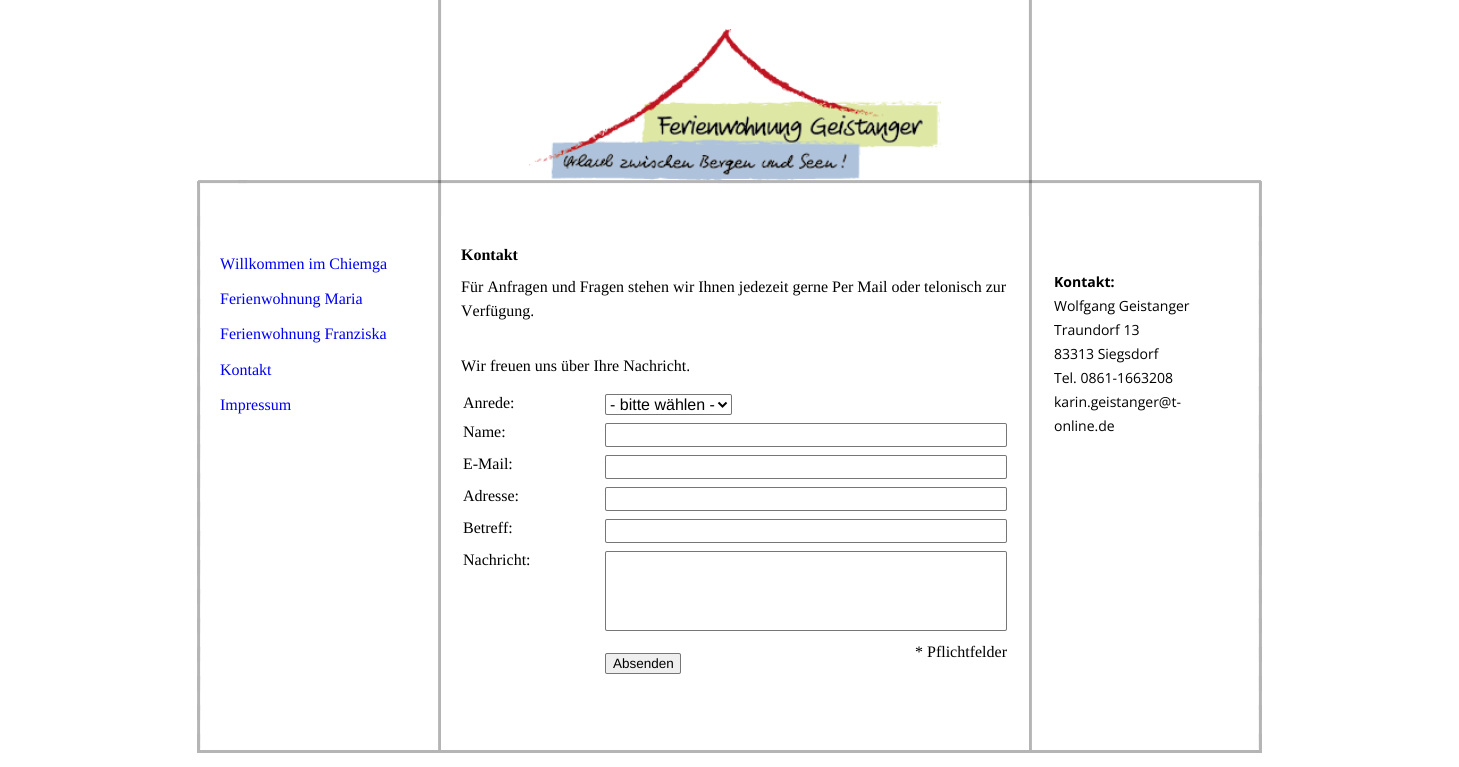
import math
import cairocffi as cairo

surface = cairo.ImageSurface(cairo.FORMAT_RGB24, 1459, 767)
ctx = cairo.Context(surface)
options = cairo.FontOptions()
options.set_hint_metrics(cairo.HINT_METRICS_OFF)
options.set_hint_style(cairo.HINT_STYLE_NONE)
ctx.set_font_options(options)
ctx.set_miter_limit(4)


def rgb(r, g, b):
    ctx.set_source_rgb(r / 255, g / 255, b / 255)


def face(family, size, italic, bold):
    ctx.select_font_face(family, cairo.FONT_SLANT_ITALIC if italic else cairo.FONT_SLANT_NORMAL, cairo.FONT_WEIGHT_BOLD if bold else cairo.FONT_WEIGHT_NORMAL)
    ctx.set_font_size(size)


def label(x, y, s):
    ctx.move_to(x, y)
    ctx.show_text(s)


def rect(x, y, w, h):
    ctx.rectangle(x, y, w, h)
    ctx.fill()


def rrect(x, y, w, h, r):
    ctx.new_sub_path()
    for i, (u, v) in enumerate([(x + w - r, y + h - r), (x + r, y + h - r), (x + r, y + r), (x + w - r, y + r)]):
        ctx.arc(u, v, r, i * math.pi / 2, (i + 1) * math.pi / 2)
    ctx.close_path()


def image(path, x, y, w, h):
    ctx.save()
    ctx.set_source_surface(cairo.ImageSurface.create_from_png(path), x, y)
    ctx.rectangle(x, y, w, h)
    ctx.fill()
    ctx.restore()


rgb(255, 255, 255)
ctx.paint()
image('image1.png', 529, 29, 412, 151)
image('image0.png', 197, 0, 1065, 216)
image('image2.png', 197, 216, 244, 534)
face('Liberation Serif', 16, 0, 0)
rgb(0, 0, 238)
label(220, 269, 'Willkommen im Chiemga')
label(220, 304, 'Ferienwohnung Maria')
label(220, 339, 'Ferienwohnung Franziska')
ctx.set_source_rgba(1, 1, 1, 0.48)
rect(200, 357, 1, 25)
rgb(0, 0, 238)
label(220, 375, 'Kontakt')
label(220, 410, 'Impressum')
face('Liberation Serif', 16, 0, 1)
rgb(0, 0, 0)
label(461, 260, 'Kontakt')
face('Liberation Serif', 16, 0, 0)
label(461, 292, 'Für Anfragen und Fragen stehen wir Ihnen jedezeit gerne Per Mail oder telonisch zur')
label(461, 316, 'Verfügung.')
label(461, 371, 'Wir freuen uns über Ihre Nachricht.')
label(463, 408, 'Anrede:')
rrect(605.5, 394.5, 126, 20, 1.5)
rgb(118, 118, 118)
ctx.set_line_width(1)
ctx.stroke()
ctx.new_path()
ctx.move_to(718.5, 402.5)
ctx.line_to(722.5, 406.5)
ctx.line_to(726.5, 402.5)
rgb(0, 0, 0)
ctx.set_line_width(2)
ctx.stroke()
face('Liberation Sans', 16, 0, 0)
label(610, 410, '- bitte wählen -')
face('Liberation Serif', 16, 0, 0)
label(463, 437, 'Name:')
rrect(605.5, 423.5, 401, 23, 1.5)
rgb(118, 118, 118)
ctx.set_line_width(1)
ctx.stroke()
rgb(0, 0, 0)
label(463, 469, 'E-Mail:')
rrect(605.5, 455.5, 401, 23, 1.5)
rgb(118, 118, 118)
ctx.stroke()
rgb(0, 0, 0)
label(463, 501, 'Adresse:')
rrect(605.5, 487.5, 401, 23, 1.5)
rgb(118, 118, 118)
ctx.stroke()
rgb(0, 0, 0)
label(463, 533, 'Betreff:')
rrect(605.5, 519.5, 401, 23, 1.5)
rgb(118, 118, 118)
ctx.stroke()
rgb(0, 0, 0)
label(463, 565, 'Nachricht:')
rrect(605.5, 551.5, 401, 79, 1.5)
rgb(118, 118, 118)
ctx.stroke()
rgb(0, 0, 0)
label(915, 657, '* Pflichtfelder')
rgb(239, 239, 239)
rrect(605.5, 653.5, 75, 20, 1.5)
ctx.fill_preserve()
rgb(118, 118, 118)
ctx.stroke()
face('Liberation Sans', 13.5, 0, 0)
rgb(0, 0, 0)
label(613, 668, 'Absenden')
image('image3.png', 1029, 216, 233, 534)
face('Open Sans', 14, 0, 1)
label(1054, 287, 'Kontakt:')
face('Open Sans', 14, 0, 0)
label(1054, 311, 'Wolfgang Geistanger')
label(1054, 335, 'Traundorf 13')
label(1054, 359, '83313 Siegsdorf')
label(1054, 383, 'Tel. 0861-1663208')
label(1054, 407, 'karin.geistanger@t-')
label(1054, 431, 'online.de')
rgb(181, 181, 181)
rect(197, 750, 1065, 3)
surface.write_to_png('render.png')
